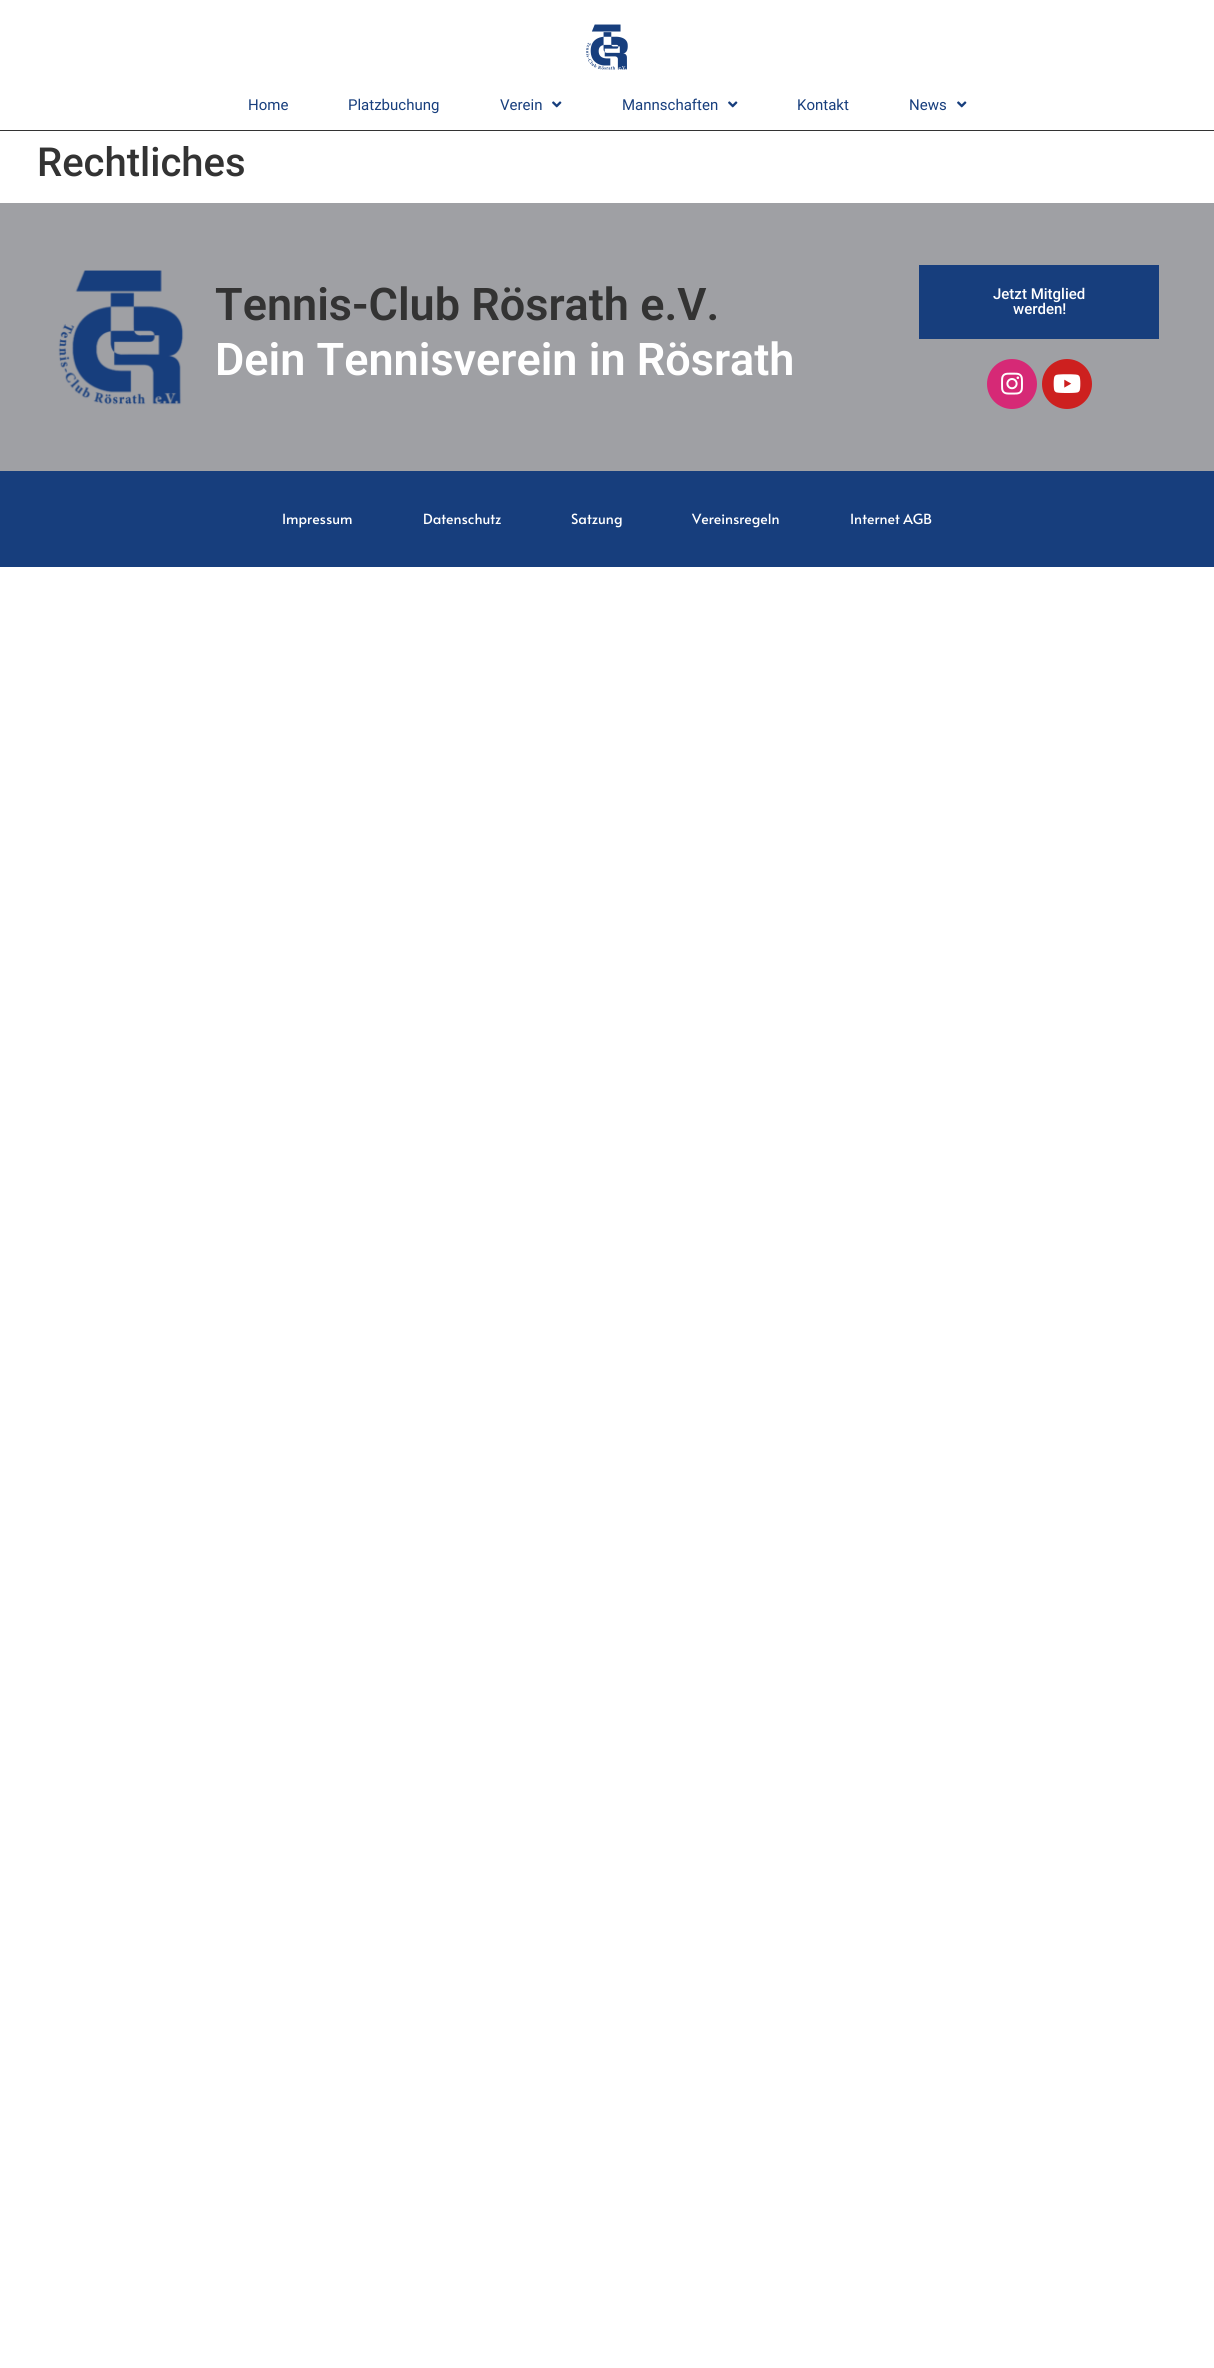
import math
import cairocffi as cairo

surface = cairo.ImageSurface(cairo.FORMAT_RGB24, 1214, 2368)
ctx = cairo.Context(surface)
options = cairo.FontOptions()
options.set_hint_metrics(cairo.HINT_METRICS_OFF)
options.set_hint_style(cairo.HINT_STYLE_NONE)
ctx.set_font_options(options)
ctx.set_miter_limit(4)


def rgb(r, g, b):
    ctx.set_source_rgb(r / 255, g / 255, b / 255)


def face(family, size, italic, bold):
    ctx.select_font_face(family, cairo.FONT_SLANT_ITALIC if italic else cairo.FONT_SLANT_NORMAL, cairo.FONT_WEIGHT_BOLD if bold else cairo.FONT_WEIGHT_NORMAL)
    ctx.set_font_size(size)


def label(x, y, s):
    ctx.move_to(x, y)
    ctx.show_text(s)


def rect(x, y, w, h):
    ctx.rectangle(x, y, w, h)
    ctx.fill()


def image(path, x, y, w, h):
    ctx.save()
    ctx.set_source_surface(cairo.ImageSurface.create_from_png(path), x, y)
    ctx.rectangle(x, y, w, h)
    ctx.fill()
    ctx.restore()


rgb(255, 255, 255)
ctx.paint()
rgb(51, 51, 51)
rect(0, 130, 1214, 1)
image('image0.png', 586, 24, 42, 46)
face('Roboto', 15, 0, 0)
rgb(23, 62, 125)
label(248, 110, 'Home')
label(348, 110, 'Platzbuchung')
label(500, 110, 'Verein')
image('image1.png', 552, 101, 10, 7)
label(622, 110, 'Mannschaften')
image('image1.png', 728, 101, 10, 7)
label(797, 110, 'Kontakt')
label(909, 110, 'News')
image('image1.png', 957, 101, 10, 7)
face('Roboto Medium', 40, 0, 0)
rgb(51, 51, 51)
label(37, 176, 'Rechtliches')
rgb(159, 160, 164)
rect(0, 203, 1214, 268)
image('image2.png', 58, 270, 126, 135)
face('Roboto SemiBold', 45, 0, 0)
rgb(51, 51, 51)
label(215, 320, 'Tennis-Club Rösrath e.V.')
rgb(255, 255, 255)
label(215, 375, 'Dein Tennisverein in Rösrath')
rgb(23, 62, 125)
rect(919, 265, 240, 74)
face('Roboto Medium', 15, 0, 0)
rgb(255, 255, 255)
label(993, 299, 'Jetzt Mitglied')
label(1013, 314, 'werden!')
rgb(214, 41, 118)
ctx.new_path()
ctx.arc(1012, 384, 25, 0, 2 * math.pi)
ctx.fill()
image('image3.png', 1001, 372, 22, 23)
rgb(205, 32, 31)
ctx.arc(1067, 384, 25, 0, 2 * math.pi)
ctx.fill()
image('image4.png', 1053, 374, 28, 19)
rgb(23, 62, 125)
rect(0, 471, 1214, 96)
face('Alata', 14, 0, 0)
rgb(255, 255, 255)
label(282, 524, 'Impressum')
label(423, 524, 'Datenschutz')
label(571, 524, 'Satzung')
label(692, 524, 'Vereinsregeln')
label(850, 524, 'Internet AGB')
surface.write_to_png('render.png')
